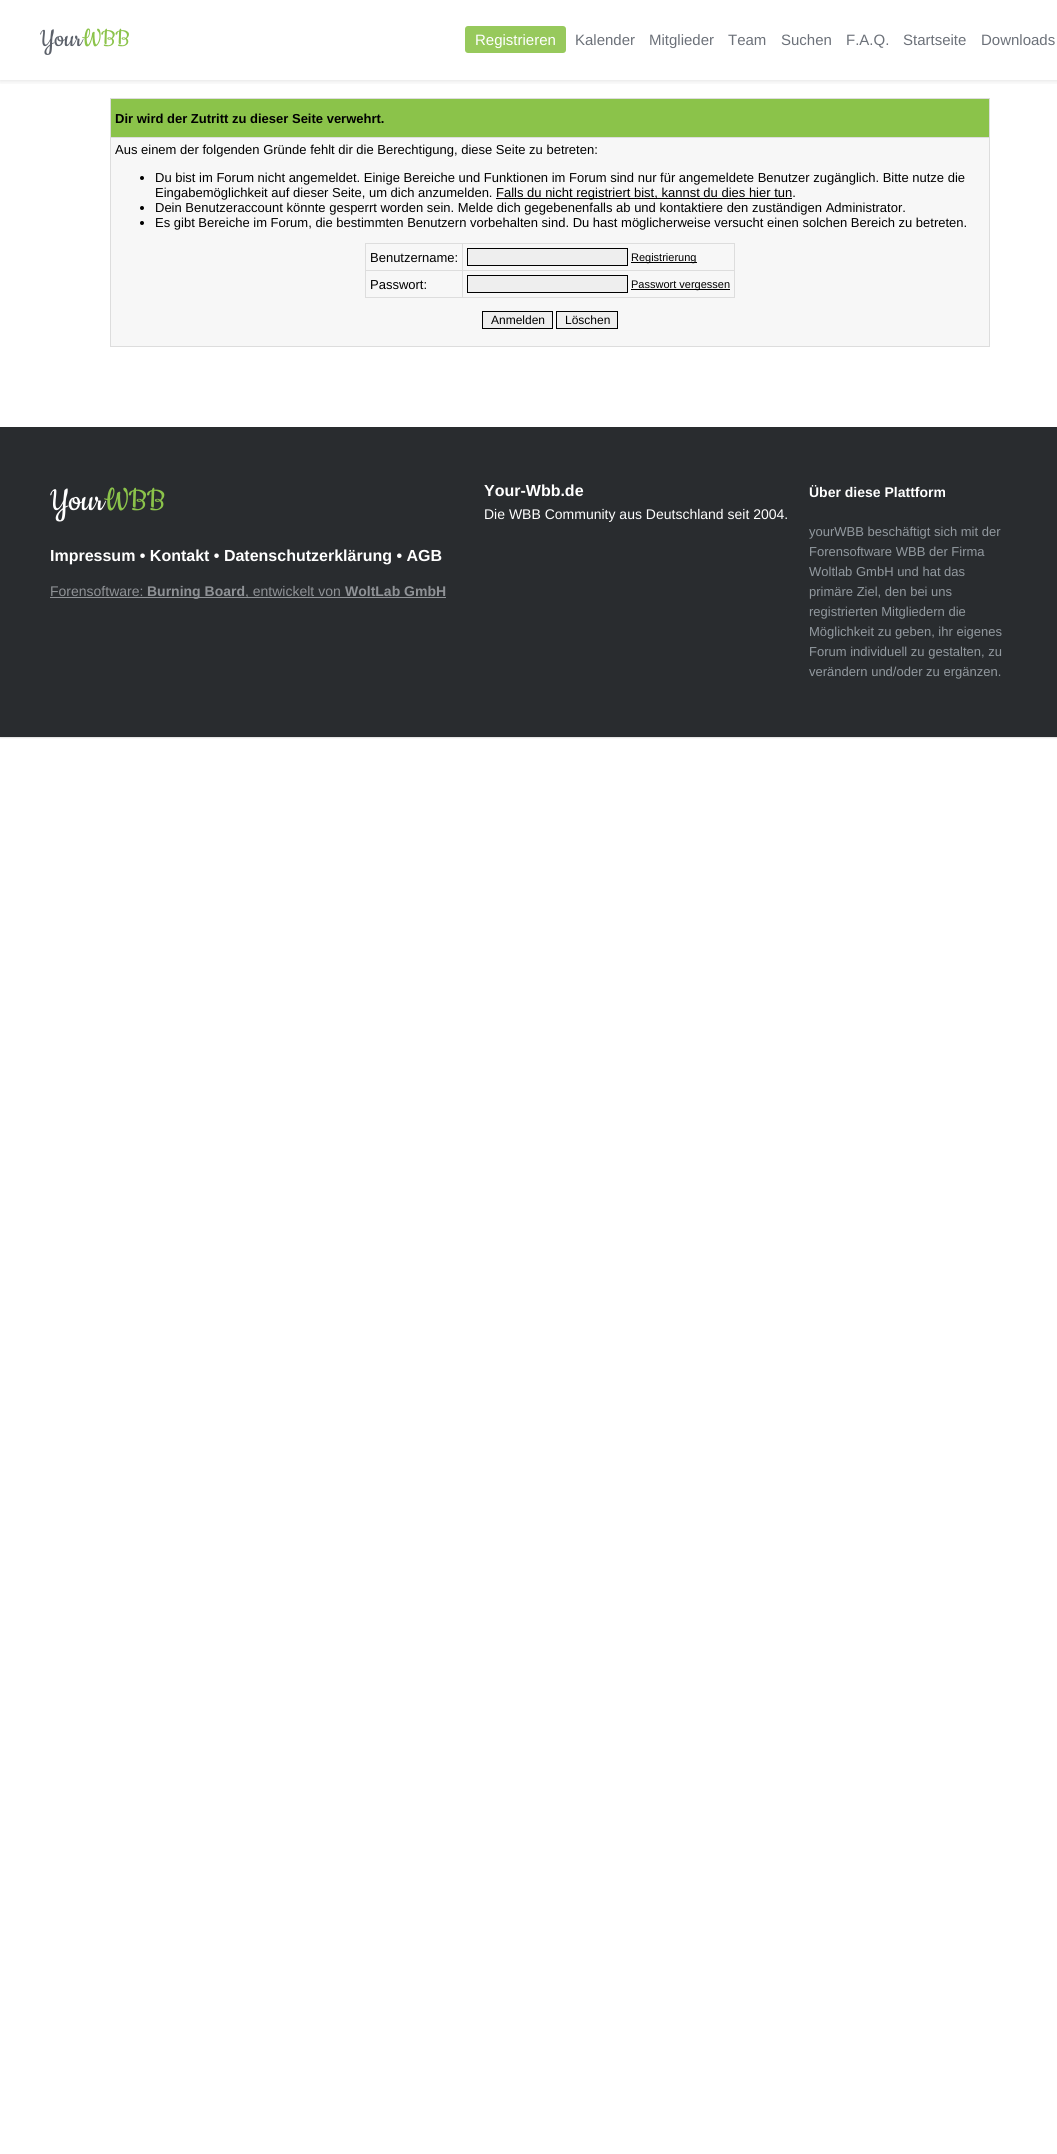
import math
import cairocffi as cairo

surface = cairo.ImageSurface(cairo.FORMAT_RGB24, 1057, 2154)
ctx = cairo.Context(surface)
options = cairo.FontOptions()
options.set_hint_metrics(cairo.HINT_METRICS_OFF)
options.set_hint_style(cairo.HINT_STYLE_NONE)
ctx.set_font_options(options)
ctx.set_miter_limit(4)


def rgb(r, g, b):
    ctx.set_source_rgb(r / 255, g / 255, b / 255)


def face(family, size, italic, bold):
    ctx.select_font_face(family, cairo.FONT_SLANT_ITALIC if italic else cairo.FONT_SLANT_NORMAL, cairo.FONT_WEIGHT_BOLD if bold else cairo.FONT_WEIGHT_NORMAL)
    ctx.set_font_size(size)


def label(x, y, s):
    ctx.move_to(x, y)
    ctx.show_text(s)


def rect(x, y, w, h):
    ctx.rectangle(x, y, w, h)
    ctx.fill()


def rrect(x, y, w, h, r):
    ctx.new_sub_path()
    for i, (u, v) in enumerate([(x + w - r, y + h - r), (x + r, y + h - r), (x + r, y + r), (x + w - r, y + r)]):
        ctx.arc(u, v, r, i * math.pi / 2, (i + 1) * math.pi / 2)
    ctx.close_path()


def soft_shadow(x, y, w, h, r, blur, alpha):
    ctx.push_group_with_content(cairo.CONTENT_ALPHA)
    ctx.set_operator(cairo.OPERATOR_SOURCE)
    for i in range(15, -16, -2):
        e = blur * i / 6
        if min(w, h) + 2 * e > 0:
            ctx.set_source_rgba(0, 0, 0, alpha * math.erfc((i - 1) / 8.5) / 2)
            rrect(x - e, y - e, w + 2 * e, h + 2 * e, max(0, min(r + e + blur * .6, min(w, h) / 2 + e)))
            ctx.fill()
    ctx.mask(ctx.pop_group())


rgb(255, 255, 255)
ctx.paint()
ctx.save()
ctx.rectangle(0, 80, 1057, 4)
ctx.clip()
rgb(0, 0, 0)
soft_shadow(0, 0, 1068, 80, 0, 3.5, 0.15)
ctx.restore()
face('Cookie', 28, 0, 0)
rgb(92, 97, 106)
label(40, 46, 'Your')
rgb(139, 195, 74)
label(82, 46, 'WBB')
rgb(151, 201, 92)
rrect(465, 26, 101, 27, 3)
ctx.fill()
face('Liberation Sans', 15, 0, 0)
rgb(255, 255, 255)
label(475, 45, 'Registrieren')
rgb(108, 113, 121)
label(575, 45, 'Kalender')
label(649, 45, 'Mitglieder')
label(728, 45, 'Team')
label(781, 45, 'Suchen')
label(846, 45, 'F.A.Q.')
label(903, 45, 'Startseite')
label(981, 45, 'Downloads')
rgb(221, 221, 221)
rect(110, 98, 880, 249)
rgb(139, 195, 74)
rect(111, 99, 878, 38)
face('Liberation Sans', 13, 0, 1)
rgb(0, 0, 0)
label(115, 123, 'Dir wird der Zutritt zu dieser Seite verwehrt.')
rgb(247, 247, 247)
rect(111, 138, 878, 208)
face('Liberation Sans', 13, 0, 0)
rgb(0, 0, 0)
label(115, 154, 'Aus einem der folgenden Gründe fehlt dir die Berechtigung, diese Seite zu betreten:')
ctx.new_path()
ctx.arc(142, 178, 2, 0, 2 * math.pi)
ctx.fill()
label(155, 182, 'Du bist im Forum nicht angemeldet. Einige Bereiche und Funktionen im Forum sind nur für angemeldete Benutzer zugänglich. Bitte nutze die')
label(155, 197, 'Eingabemöglichkeit auf dieser Seite, um dich anzumelden.')
rect(496, 198, 296, 1)
label(496, 197, 'Falls du nicht registriert bist, kannst du dies hier tun.')
ctx.new_path()
ctx.arc(142, 208, 2, 0, 2 * math.pi)
ctx.fill()
label(155, 212, 'Dein Benutzeraccount könnte gesperrt worden sein. Melde dich gegebenenfalls ab und kontaktiere den zuständigen Administrator.')
ctx.new_path()
ctx.arc(142, 223, 2, 0, 2 * math.pi)
ctx.fill()
label(155, 227, 'Es gibt Bereiche im Forum, die bestimmten Benutzern vorbehalten sind. Du hast möglicherweise versucht einen solchen Bereich zu betreten.')
rgb(221, 221, 221)
rect(365, 243, 370, 55)
rgb(247, 247, 247)
rect(366, 244, 96, 26)
rgb(0, 0, 0)
label(370, 262, 'Benutzername:')
rgb(247, 247, 247)
rect(463, 244, 271, 26)
rgb(238, 238, 238)
ctx.rectangle(467.5, 248.5, 160, 17)
ctx.fill_preserve()
rgb(0, 0, 0)
ctx.set_line_width(1)
ctx.stroke()
rect(631, 262, 66, 1)
face('Liberation Sans', 11, 0, 0)
label(631, 261, 'Registrierung')
rgb(247, 247, 247)
rect(366, 271, 96, 26)
face('Liberation Sans', 13, 0, 0)
rgb(0, 0, 0)
label(370, 289, 'Passwort:')
rgb(247, 247, 247)
rect(463, 271, 271, 26)
rgb(238, 238, 238)
ctx.rectangle(467.5, 275.5, 160, 17)
ctx.fill_preserve()
rgb(0, 0, 0)
ctx.stroke()
rect(631, 289, 99, 1)
face('Liberation Sans', 11, 0, 0)
label(631, 288, 'Passwort vergessen')
rgb(238, 238, 238)
ctx.rectangle(482.5, 311.5, 70, 17)
ctx.fill_preserve()
rgb(0, 0, 0)
ctx.stroke()
face('Liberation Sans', 12, 0, 0)
label(491, 324, 'Anmelden')
rgb(238, 238, 238)
ctx.rectangle(556.5, 311.5, 61, 17)
ctx.fill_preserve()
rgb(0, 0, 0)
ctx.stroke()
label(565, 324, 'Löschen')
rgb(0, 0, 0)
soft_shadow(0, 428, 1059, 310, 0, 0.5, 0.12)
rgb(41, 44, 47)
rect(0, 427, 1057, 310)
face('Cookie', 36, 0, 0)
rgb(255, 255, 255)
label(50, 510, 'Your')
rgb(139, 195, 74)
label(104, 510, 'WBB')
face('Liberation Sans', 16, 0, 1)
rgb(255, 255, 255)
label(50, 561, 'Impressum • Kontakt • Datenschutzerklärung • AGB')
face('Liberation Sans', 14, 0, 0)
rgb(143, 146, 150)
label(50, 596, 'Forensoftware:')
rect(50, 597, 396, 1)
face('Liberation Sans', 14, 0, 1)
label(147, 596, 'Burning Board')
face('Liberation Sans', 14, 0, 0)
label(245, 596, ', entwickelt von')
face('Liberation Sans', 14, 0, 1)
label(345, 596, 'WoltLab GmbH')
face('Liberation Sans', 16, 0, 1)
rgb(255, 255, 255)
label(484, 496, 'Your-Wbb.de')
face('Liberation Sans', 14, 0, 0)
label(484, 519, 'Die WBB Community aus Deutschland seit 2004.')
face('Liberation Sans', 14, 0, 1)
label(809, 497, 'Über diese Plattform')
face('Liberation Sans', 13, 0, 0)
rgb(146, 153, 159)
label(809, 536, 'yourWBB beschäftigt sich mit der')
label(809, 556, 'Forensoftware WBB der Firma')
label(809, 576, 'Woltlab GmbH und hat das')
label(809, 596, 'primäre Ziel, den bei uns')
label(809, 616, 'registrierten Mitgliedern die')
label(809, 636, 'Möglichkeit zu geben, ihr eigenes')
label(809, 656, 'Forum individuell zu gestalten, zu')
label(809, 676, 'verändern und/oder zu ergänzen.')
surface.write_to_png('render.png')
